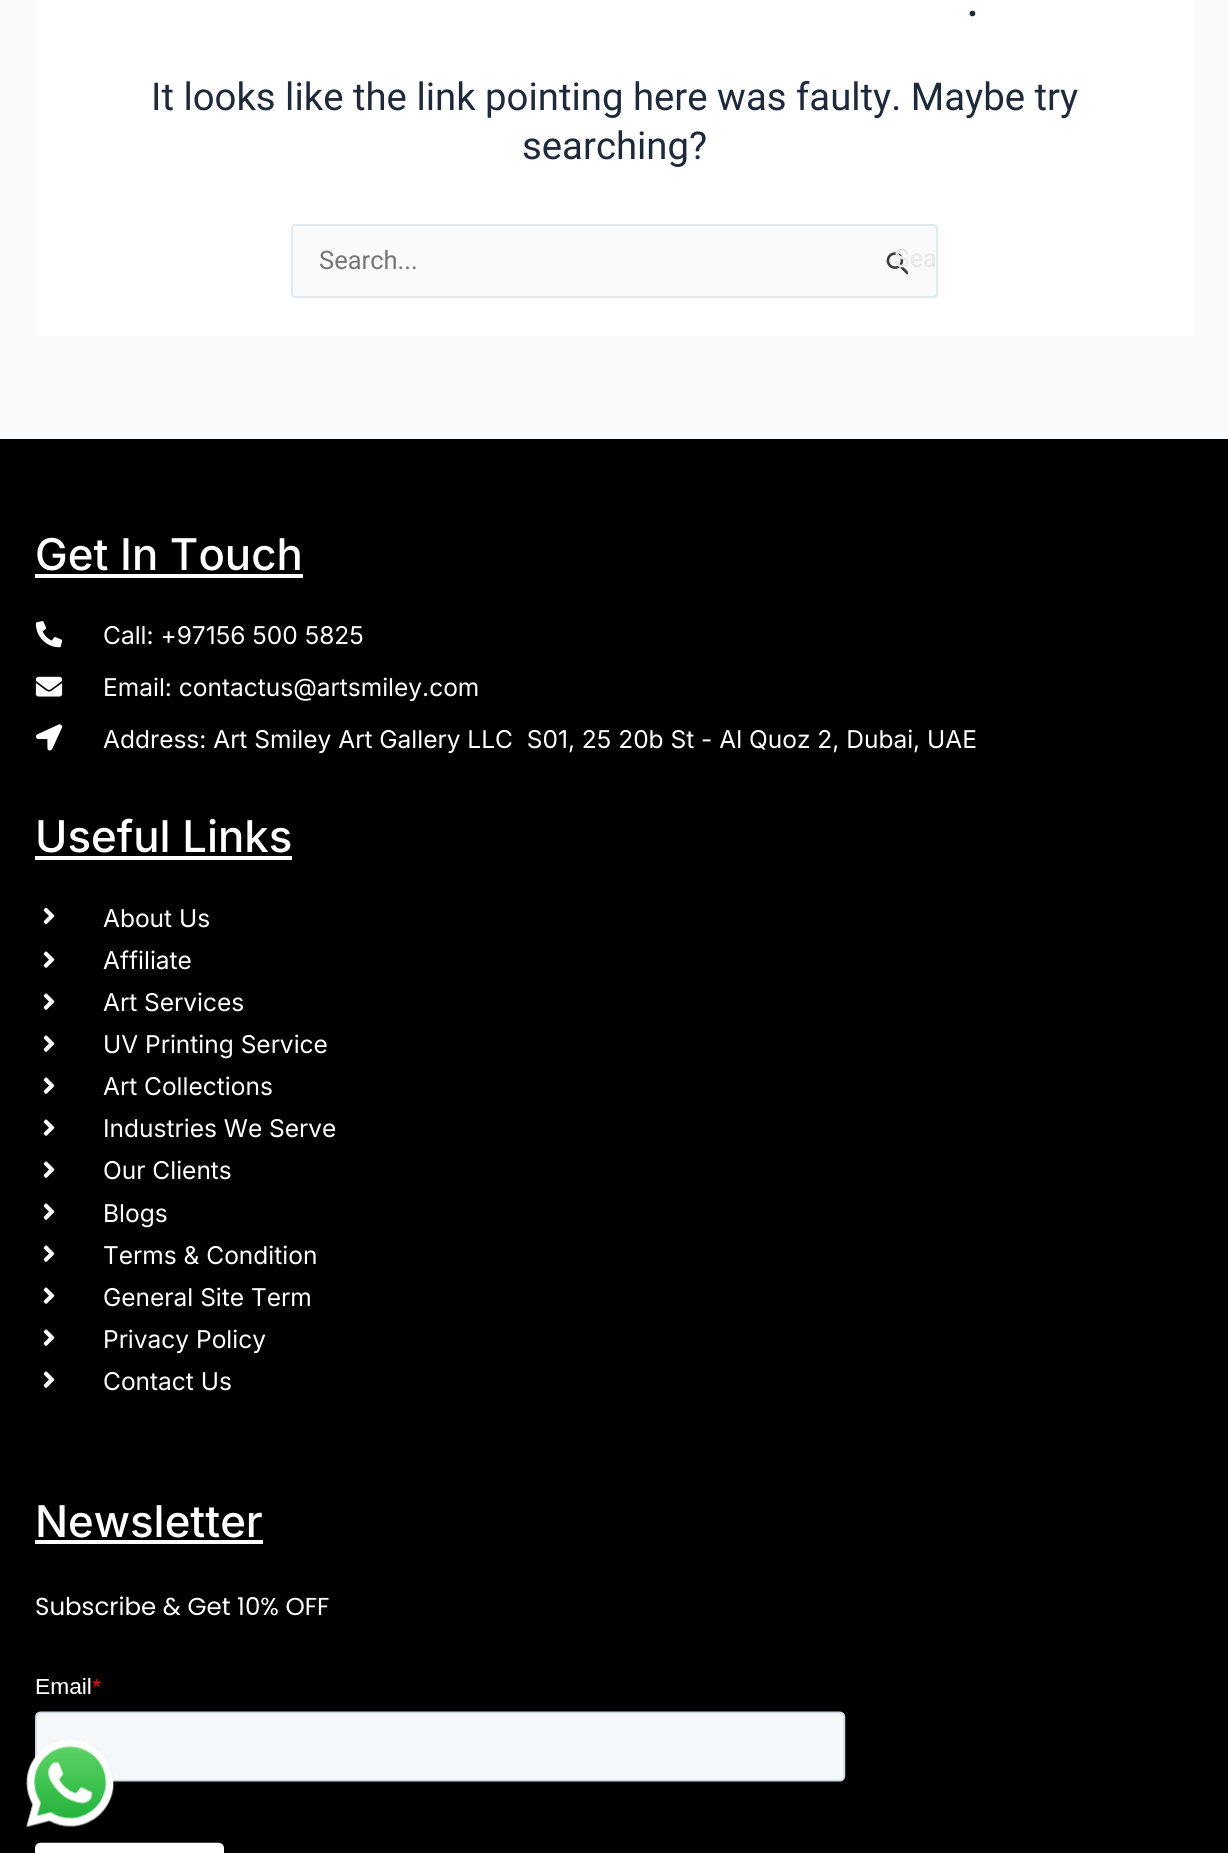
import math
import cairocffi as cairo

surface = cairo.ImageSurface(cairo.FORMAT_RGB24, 1228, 1853)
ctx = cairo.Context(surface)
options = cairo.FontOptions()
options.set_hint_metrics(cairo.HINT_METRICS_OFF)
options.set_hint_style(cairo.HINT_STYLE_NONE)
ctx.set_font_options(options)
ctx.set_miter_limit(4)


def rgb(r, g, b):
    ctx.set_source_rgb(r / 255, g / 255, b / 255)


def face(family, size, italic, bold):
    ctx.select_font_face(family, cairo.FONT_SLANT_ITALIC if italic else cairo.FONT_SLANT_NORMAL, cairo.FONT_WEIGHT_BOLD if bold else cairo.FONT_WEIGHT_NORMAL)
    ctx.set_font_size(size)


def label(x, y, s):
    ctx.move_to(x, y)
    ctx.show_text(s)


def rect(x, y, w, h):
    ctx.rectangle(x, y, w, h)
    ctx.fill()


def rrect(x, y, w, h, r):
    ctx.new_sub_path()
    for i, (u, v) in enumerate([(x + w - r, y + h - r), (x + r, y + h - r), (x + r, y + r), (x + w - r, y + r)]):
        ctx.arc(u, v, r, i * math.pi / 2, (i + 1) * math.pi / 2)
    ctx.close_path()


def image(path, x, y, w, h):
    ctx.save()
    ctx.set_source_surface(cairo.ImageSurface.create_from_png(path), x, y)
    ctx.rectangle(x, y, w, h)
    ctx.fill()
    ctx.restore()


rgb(249, 250, 251)
ctx.paint()
rgb(255, 255, 255)
rect(35, 0, 1159, 336)
face('Roboto', 51, 0, 0)
rgb(30, 41, 59)
label(966, 16, '.')
face('Roboto', 38.3, 0, 0)
label(151, 110, 'It looks like the link pointing here was faulty. Maybe try')
label(522, 159, 'searching?')
rgb(250, 250, 250)
rrect(292, 225, 645, 72, 3)
ctx.fill_preserve()
rgb(226, 232, 240)
ctx.stroke()
face('Roboto', 25.5, 0, 0)
rgb(117, 117, 117)
label(319, 269, 'Search...')
image('image0.png', 886, 252, 22, 23)
face('Roboto Medium', 25.5, 0, 0)
rgb(233, 233, 233)
label(894, 267, 'Sea')
rgb(0, 0, 0)
rect(0, 439, 1228, 1414)
face('Inter Medium', 43.75, 0, 0)
rgb(255, 255, 255)
label(35, 570, 'Get In Touch')
rect(35, 574, 268, 4)
image('image1.png', 35, 621, 28, 27)
face('Inter', 24.5, 0, 0)
label(103, 644, 'Call: +97156 500 5825')
image('image2.png', 35, 676, 28, 21)
label(103, 696, 'Email: contactus@artsmiley.com')
image('image3.png', 35, 724, 28, 27)
label(103, 748, 'Address: Art Smiley Art Gallery LLC  S01, 25 20b St - Al Quoz 2, Dubai, UAE')
face('Inter Medium', 43.75, 0, 0)
label(35, 852, 'Useful Links')
rect(35, 856, 257, 4)
image('image4.png', 43, 907, 12, 18)
face('Inter', 24.5, 0, 0)
label(103, 927, 'About Us')
image('image5.png', 43, 951, 12, 17)
label(103, 969, 'Affiliate')
image('image5.png', 43, 993, 12, 17)
label(103, 1011, 'Art Services')
image('image5.png', 43, 1035, 12, 17)
label(103, 1053, 'UV Printing Service')
image('image5.png', 43, 1077, 12, 17)
label(103, 1095, 'Art Collections')
image('image5.png', 43, 1119, 12, 17)
label(103, 1137, 'Industries We Serve')
image('image5.png', 43, 1161, 12, 17)
label(103, 1179, 'Our Clients')
image('image5.png', 43, 1203, 12, 17)
label(103, 1222, 'Blogs')
image('image5.png', 43, 1245, 12, 17)
label(103, 1264, 'Terms & Condition')
image('image5.png', 43, 1287, 12, 17)
label(103, 1306, 'General Site Term')
image('image5.png', 43, 1329, 12, 17)
label(103, 1348, 'Privacy Policy')
image('image5.png', 43, 1371, 12, 17)
label(103, 1390, 'Contact Us')
face('Inter Medium', 43.75, 0, 0)
label(35, 1537, 'Newsletter')
rect(35, 1540, 228, 4)
face('Poppins', 24.5, 0, 0)
label(35, 1615, 'Subscribe & Get 10% OFF')
image('image6.png', 35, 1678, 811, 175)
image('image7.png', 26, 1739, 89, 89)
surface.write_to_png('render.png')
